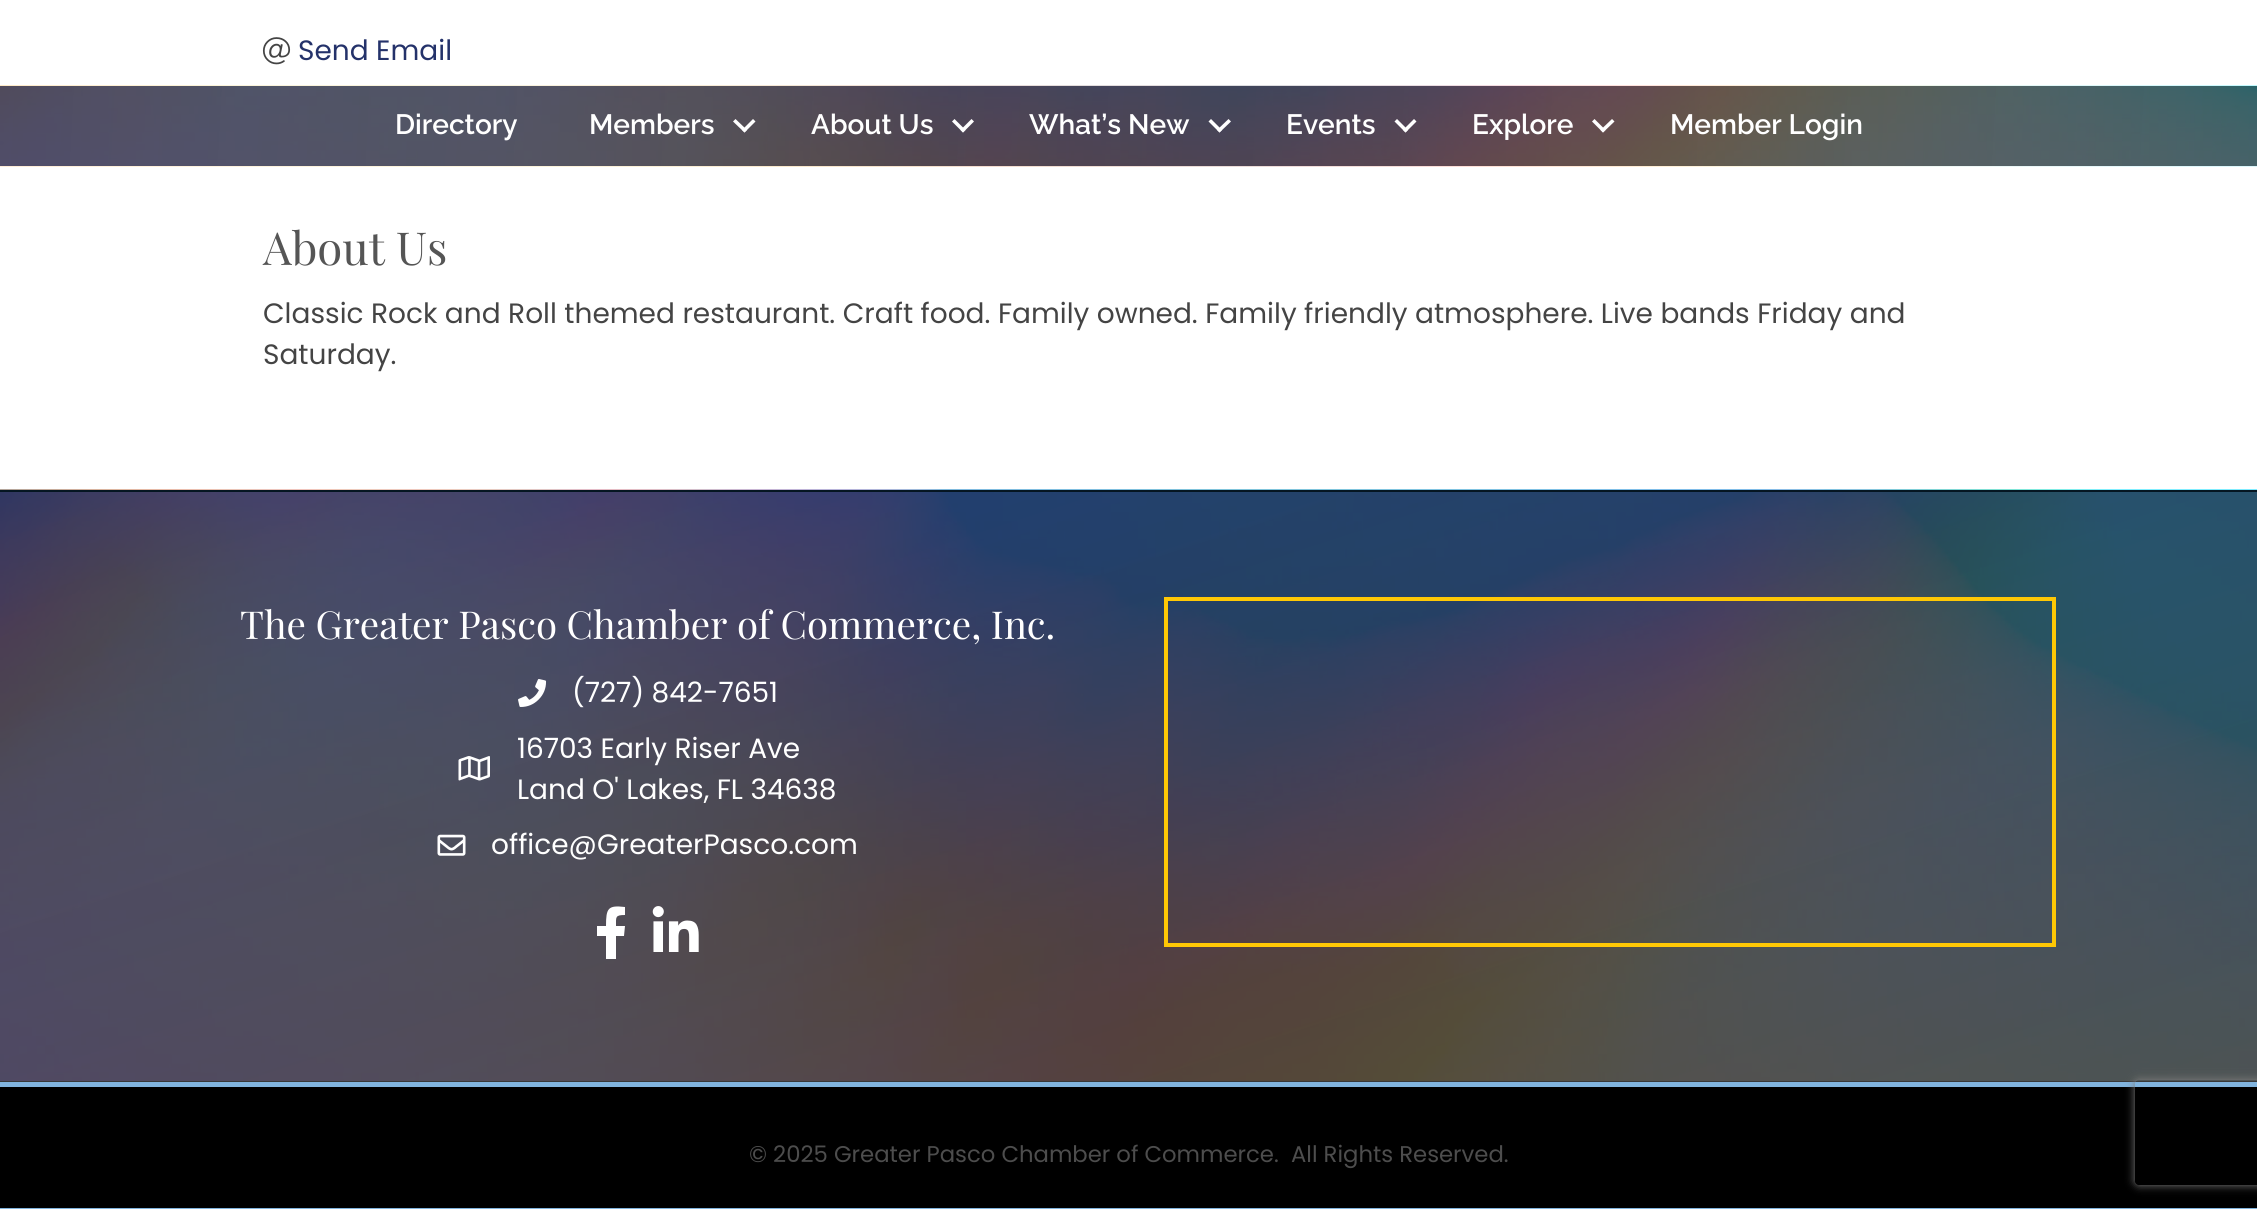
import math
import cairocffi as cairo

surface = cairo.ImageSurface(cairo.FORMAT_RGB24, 2257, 1209)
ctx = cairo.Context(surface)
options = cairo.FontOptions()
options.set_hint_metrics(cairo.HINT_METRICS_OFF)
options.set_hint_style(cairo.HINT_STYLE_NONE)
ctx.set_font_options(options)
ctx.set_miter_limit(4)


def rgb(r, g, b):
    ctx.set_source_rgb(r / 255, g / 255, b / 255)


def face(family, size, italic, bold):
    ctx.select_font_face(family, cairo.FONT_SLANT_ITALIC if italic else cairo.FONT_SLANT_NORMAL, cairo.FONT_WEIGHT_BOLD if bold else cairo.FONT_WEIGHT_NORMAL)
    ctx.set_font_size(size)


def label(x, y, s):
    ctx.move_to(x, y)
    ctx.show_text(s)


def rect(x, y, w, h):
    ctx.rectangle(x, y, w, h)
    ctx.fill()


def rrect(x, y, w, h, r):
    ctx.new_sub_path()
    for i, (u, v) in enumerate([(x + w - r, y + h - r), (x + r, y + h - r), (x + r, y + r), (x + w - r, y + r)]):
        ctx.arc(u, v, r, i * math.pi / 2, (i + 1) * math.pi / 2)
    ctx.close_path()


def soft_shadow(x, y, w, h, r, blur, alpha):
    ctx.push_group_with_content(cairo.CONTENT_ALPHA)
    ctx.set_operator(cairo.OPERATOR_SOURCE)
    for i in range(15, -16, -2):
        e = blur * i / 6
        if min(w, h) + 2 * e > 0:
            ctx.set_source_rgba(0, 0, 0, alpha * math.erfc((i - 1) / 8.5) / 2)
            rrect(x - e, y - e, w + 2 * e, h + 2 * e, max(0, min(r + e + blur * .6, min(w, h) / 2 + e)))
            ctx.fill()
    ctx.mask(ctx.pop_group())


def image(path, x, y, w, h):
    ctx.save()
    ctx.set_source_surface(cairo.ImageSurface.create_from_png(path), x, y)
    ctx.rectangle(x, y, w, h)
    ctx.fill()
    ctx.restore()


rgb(255, 255, 255)
ctx.paint()
image('image0.png', 262, 37, 29, 28)
face('Poppins', 28, 0, 0)
rgb(36, 50, 106)
label(298, 60, 'Send Email')
face('Playfair Display', 45.5, 0, 0)
rgb(85, 85, 85)
label(263, 265, 'About Us')
face('Poppins', 28, 0, 0)
rgb(68, 68, 68)
label(263, 323, 'Classic Rock and Roll themed restaurant. Craft food. Family owned. Family friendly atmosphere. Live bands Friday and')
label(263, 364, 'Saturday.')
image('image1.png', 0, 85, 2257, 82)
face('Raleway Thin', 28, 0, 0)
rgb(255, 255, 255)
label(395, 134, 'Directory')
label(589, 134, 'Members')
ctx.new_path()
ctx.move_to(753, 119)
ctx.line_to(755.5, 121.5)
ctx.line_to(744.5, 132.5)
ctx.line_to(742, 130)
ctx.close_path()
ctx.fill()
ctx.new_path()
ctx.move_to(735.5, 119)
ctx.line_to(747, 130)
ctx.line_to(744.5, 132.5)
ctx.line_to(733, 121.5)
ctx.close_path()
ctx.fill()
label(811, 134, 'About Us')
ctx.new_path()
ctx.move_to(971.5, 119)
ctx.line_to(974, 121.5)
ctx.line_to(963, 132.5)
ctx.line_to(960.5, 130)
ctx.close_path()
ctx.fill()
ctx.new_path()
ctx.move_to(954.5, 119)
ctx.line_to(965.5, 130)
ctx.line_to(963, 132.5)
ctx.line_to(952, 121.5)
ctx.close_path()
ctx.fill()
label(1029, 134, 'What’s New')
ctx.new_path()
ctx.move_to(1228.5, 119)
ctx.line_to(1231, 121.5)
ctx.line_to(1219.5, 132.5)
ctx.line_to(1217, 130)
ctx.close_path()
ctx.fill()
ctx.new_path()
ctx.move_to(1211, 119)
ctx.line_to(1222, 130)
ctx.line_to(1219.5, 132.5)
ctx.line_to(1208.5, 121.5)
ctx.close_path()
ctx.fill()
label(1286, 134, 'Events')
ctx.new_path()
ctx.move_to(1414, 119)
ctx.line_to(1416.5, 121.5)
ctx.line_to(1405.5, 132.5)
ctx.line_to(1403, 130)
ctx.close_path()
ctx.fill()
ctx.new_path()
ctx.move_to(1397, 119)
ctx.line_to(1408, 130)
ctx.line_to(1405.5, 132.5)
ctx.line_to(1394.5, 121.5)
ctx.close_path()
ctx.fill()
label(1472, 134, 'Explore')
ctx.new_path()
ctx.move_to(1612, 119)
ctx.line_to(1614.5, 121.5)
ctx.line_to(1603, 132.5)
ctx.line_to(1600.5, 130)
ctx.close_path()
ctx.fill()
ctx.new_path()
ctx.move_to(1594.5, 119)
ctx.line_to(1605.5, 130)
ctx.line_to(1603, 132.5)
ctx.line_to(1592, 121.5)
ctx.close_path()
ctx.fill()
label(1670, 134, 'Member Login')
rgb(56, 56, 56)
rect(0, 1081, 2257, 1)
image('image2.png', 0, 489, 2257, 592)
rgb(5, 22, 34)
rect(0, 490, 2257, 2)
face('Playfair Display', 38.5, 0, 0)
rgb(255, 255, 255)
label(240, 639, 'The Greater Pasco Chamber of Commerce, Inc.')
image('image3.png', 518, 679, 29, 28)
face('Poppins', 28, 0, 0)
label(572, 702, '(727) 842-7651')
image('image4.png', 458, 756, 32, 25)
label(517, 758, '16703 Early Riser Ave')
label(517, 799, 'Land O\' Lakes, FL 34638')
image('image5.png', 437, 834, 29, 22)
label(491, 854, 'office@GreaterPasco.com')
ctx.new_path()
ctx.move_to(624, 936)
ctx.line_to(616, 936)
ctx.line_to(616, 959)
ctx.line_to(606, 959)
ctx.line_to(606, 936)
ctx.line_to(597, 936)
ctx.line_to(597, 926)
ctx.line_to(606, 926)
ctx.curve_to(606, 908, 608, 905, 625, 907)
ctx.line_to(625, 915)
ctx.curve_to(615, 915, 616, 917, 616, 926)
ctx.line_to(625, 926)
ctx.close_path()
ctx.fill()
image('image6.png', 652, 906, 47, 46)
ctx.rectangle(1166, 599, 888, 346)
rgb(255, 200, 5)
ctx.set_line_width(4)
ctx.stroke()
rgb(0, 0, 0)
rect(0, 1087, 2257, 121)
rgb(129, 180, 222)
rect(0, 1082, 2257, 5)
rect(0, 1208, 2257, 1)
face('Poppins', 22.75, 0, 0)
rgb(77, 77, 77)
label(749, 1162, '© 2025 Greater Pasco Chamber of Commerce.')
label(1291, 1162, 'All Rights Reserved.')
ctx.save()
ctx.set_fill_rule(cairo.FILL_RULE_EVEN_ODD)
ctx.new_path()
ctx.move_to(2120, 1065)
ctx.line_to(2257, 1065)
ctx.line_to(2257, 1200)
ctx.line_to(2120, 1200)
ctx.close_path()
ctx.move_to(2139, 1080)
ctx.line_to(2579, 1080)
ctx.curve_to(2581, 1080, 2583, 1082, 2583, 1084)
ctx.line_to(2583, 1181)
ctx.curve_to(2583, 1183, 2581, 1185, 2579, 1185)
ctx.line_to(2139, 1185)
ctx.curve_to(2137, 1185, 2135, 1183, 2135, 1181)
ctx.line_to(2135, 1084)
ctx.curve_to(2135, 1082, 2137, 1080, 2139, 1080)
ctx.close_path()
ctx.clip()
rgb(128, 128, 128)
soft_shadow(2135, 1080, 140, 105, 4, 4.5, 1)
ctx.restore()
surface.write_to_png('render.png')
